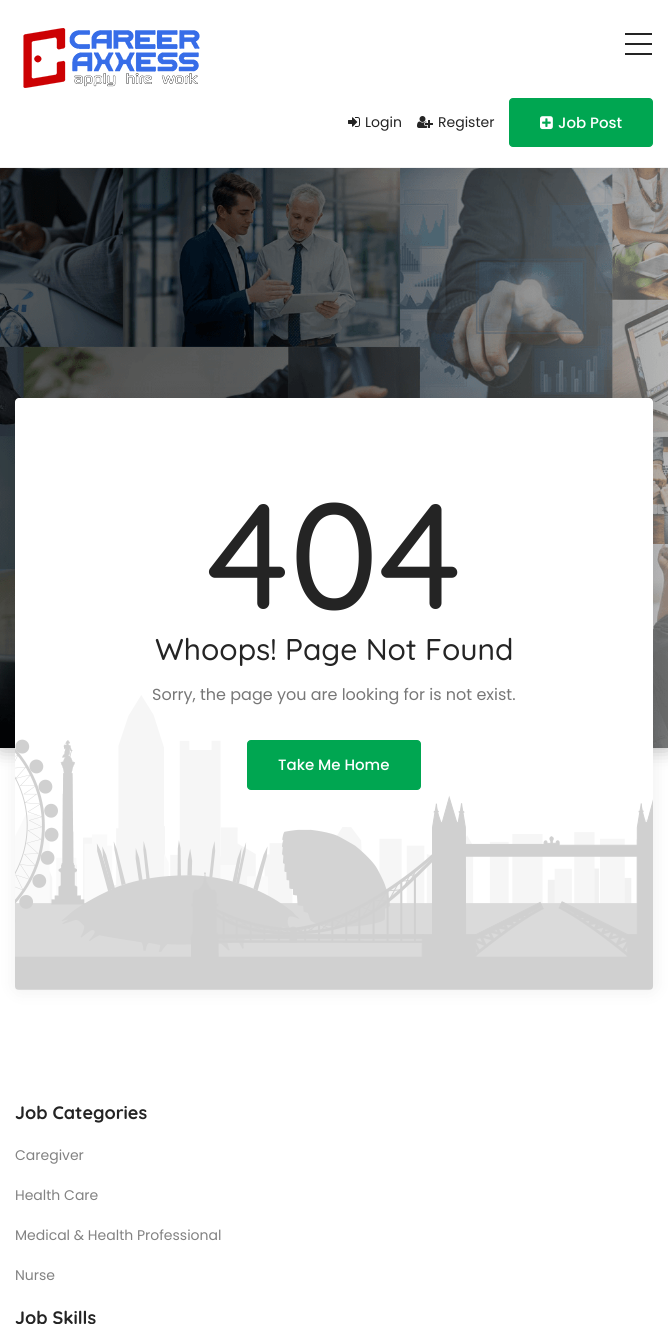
import math
import cairocffi as cairo

surface = cairo.ImageSurface(cairo.FORMAT_RGB24, 668, 1324)
ctx = cairo.Context(surface)
options = cairo.FontOptions()
options.set_hint_metrics(cairo.HINT_METRICS_OFF)
options.set_hint_style(cairo.HINT_STYLE_NONE)
ctx.set_font_options(options)
ctx.set_miter_limit(4)


def rgb(r, g, b):
    ctx.set_source_rgb(r / 255, g / 255, b / 255)


def face(family, size, italic, bold):
    ctx.select_font_face(family, cairo.FONT_SLANT_ITALIC if italic else cairo.FONT_SLANT_NORMAL, cairo.FONT_WEIGHT_BOLD if bold else cairo.FONT_WEIGHT_NORMAL)
    ctx.set_font_size(size)


def label(x, y, s):
    ctx.move_to(x, y)
    ctx.show_text(s)


def rect(x, y, w, h):
    ctx.rectangle(x, y, w, h)
    ctx.fill()


def rrect(x, y, w, h, r):
    ctx.new_sub_path()
    for i, (u, v) in enumerate([(x + w - r, y + h - r), (x + r, y + h - r), (x + r, y + r), (x + w - r, y + r)]):
        ctx.arc(u, v, r, i * math.pi / 2, (i + 1) * math.pi / 2)
    ctx.close_path()


def soft_shadow(x, y, w, h, r, blur, alpha):
    ctx.push_group_with_content(cairo.CONTENT_ALPHA)
    ctx.set_operator(cairo.OPERATOR_SOURCE)
    for i in range(15, -16, -2):
        e = blur * i / 6
        if min(w, h) + 2 * e > 0:
            ctx.set_source_rgba(0, 0, 0, alpha * math.erfc((i - 1) / 8.5) / 2)
            rrect(x - e, y - e, w + 2 * e, h + 2 * e, max(0, min(r + e + blur * .6, min(w, h) / 2 + e)))
            ctx.fill()
    ctx.mask(ctx.pop_group())


def image(path, x, y, w, h):
    ctx.save()
    ctx.set_source_surface(cairo.ImageSurface.create_from_png(path), x, y)
    ctx.rectangle(x, y, w, h)
    ctx.fill()
    ctx.restore()


rgb(255, 255, 255)
ctx.paint()
rgb(0, 0, 0)
soft_shadow(1, 168, 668, 580, 0, 10, 0.3)
image('image4.png', 0, 168, 668, 580)
soft_shadow(1, 0, 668, 168, 0, 10, 0.07)
rgb(255, 255, 255)
rect(0, 0, 668, 167)
rgb(240, 240, 240)
rect(0, 167, 668, 1)
image('image0.png', 23, 28, 177, 60)
rgb(36, 36, 36)
rect(625, 33, 27, 2)
rect(625, 43, 27, 2)
rect(625, 53, 27, 2)
image('image1.png', 348, 117, 12, 10)
face('Poppins', 14, 0, 0)
label(365, 127, 'Login')
image('image2.png', 417, 116, 16, 12)
label(438, 127, 'Register')
rgb(0, 166, 81)
rrect(509.5, 98.5, 143, 48, 3.5)
ctx.fill_preserve()
ctx.set_line_width(1)
ctx.stroke()
image('image3.png', 540, 116, 13, 14)
face('Poppins Medium', 15, 0, 0)
rgb(255, 255, 255)
label(558, 128, 'Job Post')
rgb(0, 0, 0)
soft_shadow(16, 398, 638, 592, 4, 10, 0.07)
rgb(255, 255, 255)
rrect(15, 398, 638, 592, 4)
ctx.fill()
image('image5.png', 15, 695, 638, 295)
face('Quicksand Medium', 150, 0, 0)
rgb(36, 36, 36)
label(207, 609, '404')
face('Quicksand Medium', 30, 0, 0)
label(155, 660, 'Whoops! Page Not Found')
face('Poppins', 16, 0, 0)
rgb(119, 119, 119)
label(152, 700, 'Sorry, the page you are looking for is not exist.')
rgb(0, 166, 81)
rrect(247.5, 740.5, 173, 49, 3.5)
ctx.fill_preserve()
ctx.stroke()
face('Poppins Medium', 15, 0, 0)
rgb(255, 255, 255)
label(278, 770, 'Take Me Home')
face('Quicksand', 18, 0, 1)
rgb(36, 36, 36)
label(15, 1119, 'Job Categories')
face('Poppins', 14, 0, 0)
rgb(130, 130, 130)
label(15, 1160, 'Caregiver')
label(15, 1200, 'Health Care')
label(15, 1240, 'Medical & Health Professional')
label(15, 1280, 'Nurse')
face('Quicksand', 18, 0, 1)
rgb(36, 36, 36)
label(15, 1324, 'Job Skills')
surface.write_to_png('render.png')
